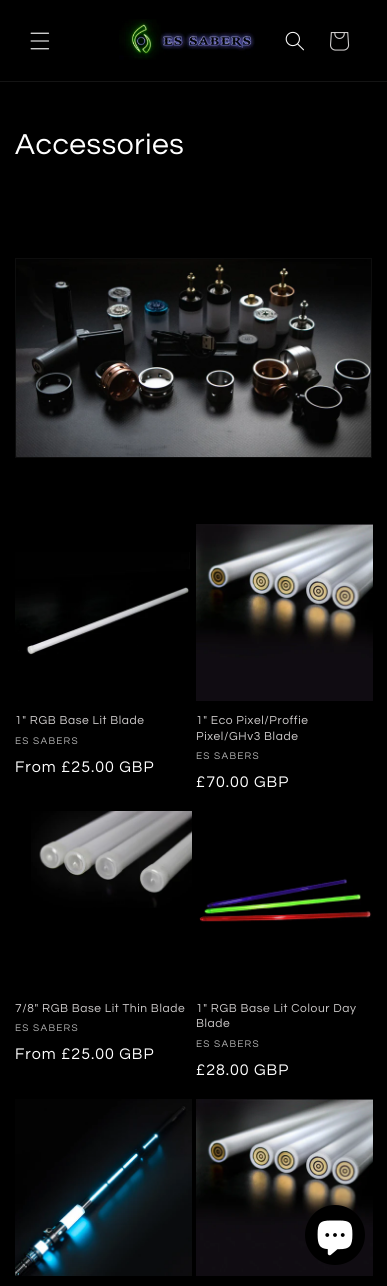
import math
import cairocffi as cairo

surface = cairo.ImageSurface(cairo.FORMAT_RGB24, 387, 1286)
ctx = cairo.Context(surface)
options = cairo.FontOptions()
options.set_hint_metrics(cairo.HINT_METRICS_OFF)
options.set_hint_style(cairo.HINT_STYLE_NONE)
ctx.set_font_options(options)
ctx.set_miter_limit(4)


def rgb(r, g, b):
    ctx.set_source_rgb(r / 255, g / 255, b / 255)


def face(family, size, italic, bold):
    ctx.select_font_face(family, cairo.FONT_SLANT_ITALIC if italic else cairo.FONT_SLANT_NORMAL, cairo.FONT_WEIGHT_BOLD if bold else cairo.FONT_WEIGHT_NORMAL)
    ctx.set_font_size(size)


def tracked(x, y, s, letter, word):
    ctx.move_to(x, y)
    for ch in s:
        ctx.show_text(ch)
        ctx.rel_move_to(letter + word * (ch == ' '), 0)


def rect(x, y, w, h):
    ctx.rectangle(x, y, w, h)
    ctx.fill()


def image(path, x, y, w, h):
    ctx.save()
    ctx.set_source_surface(cairo.ImageSurface.create_from_png(path), x, y)
    ctx.rectangle(x, y, w, h)
    ctx.fill()
    ctx.restore()


rgb(0, 0, 0)
ctx.paint()
rgb(20, 20, 20)
rect(0, 81, 387, 1)
image('image0.png', 30, 32, 20, 18)
image('image1.png', 119, 19, 136, 41)
image('image2.png', 285, 31, 19, 20)
image('image3.png', 330, 32, 20, 19)
face('Questrial', 30, 0, 0)
rgb(255, 255, 255)
tracked(15, 154, 'Accessories', 0.6, 0)
ctx.rectangle(15.5, 258.5, 356, 199)
rgb(13, 13, 13)
ctx.set_line_width(1)
ctx.stroke()
image('image4.png', 16, 259, 355, 198)
image('image5.png', 15, 552, 175, 103)
face('Questrial', 12, 0, 0)
rgb(207, 204, 204)
tracked(15, 724, '1" RGB Base Lit Blade', 0.6, 0)
face('Questrial', 10, 0, 0)
rgb(179, 179, 179)
tracked(15, 744, 'ES SABERS', 1.25, 0)
face('Questrial', 16, 0, 0)
rgb(255, 255, 255)
tracked(15, 772, 'From £25.00 GBP', 1, 0)
image('image6.png', 196, 524, 177, 177)
face('Questrial', 12, 0, 0)
rgb(207, 204, 204)
tracked(196, 724, '1" Eco Pixel/Proffie', 0.6, 0)
tracked(196, 740, 'Pixel/GHv3 Blade', 0.6, 0)
face('Questrial', 10, 0, 0)
rgb(179, 179, 179)
tracked(196, 759, 'ES SABERS', 1.25, 0)
face('Questrial', 16, 0, 0)
rgb(255, 255, 255)
tracked(196, 787, '£70.00 GBP', 1, 0)
image('image7.png', 31, 811, 161, 97)
face('Questrial', 12, 0, 0)
rgb(207, 204, 204)
tracked(15, 1012, '7/8" RGB Base Lit Thin Blade', 0.6, 0)
face('Questrial', 10, 0, 0)
rgb(179, 179, 179)
tracked(15, 1031, 'ES SABERS', 1.25, 0)
face('Questrial', 16, 0, 0)
rgb(255, 255, 255)
tracked(15, 1059, 'From £25.00 GBP', 1, 0)
image('image8.png', 199, 878, 173, 44)
face('Questrial', 12, 0, 0)
rgb(207, 204, 204)
tracked(196, 1012, '1" RGB Base Lit Colour Day', 0.6, 0)
tracked(196, 1027, 'Blade', 0.6, 0)
face('Questrial', 10, 0, 0)
rgb(179, 179, 179)
tracked(196, 1047, 'ES SABERS', 1.25, 0)
face('Questrial', 16, 0, 0)
rgb(255, 255, 255)
tracked(196, 1075, '£28.00 GBP', 1, 0)
image('image9.png', 15, 1099, 177, 177)
image('image10.png', 196, 1099, 177, 177)
rgb(0, 0, 0)
ctx.arc(335, 1235, 30, 0, 2 * math.pi)
ctx.fill()
image('image11.png', 317, 1220, 36, 36)
surface.write_to_png('render.png')
